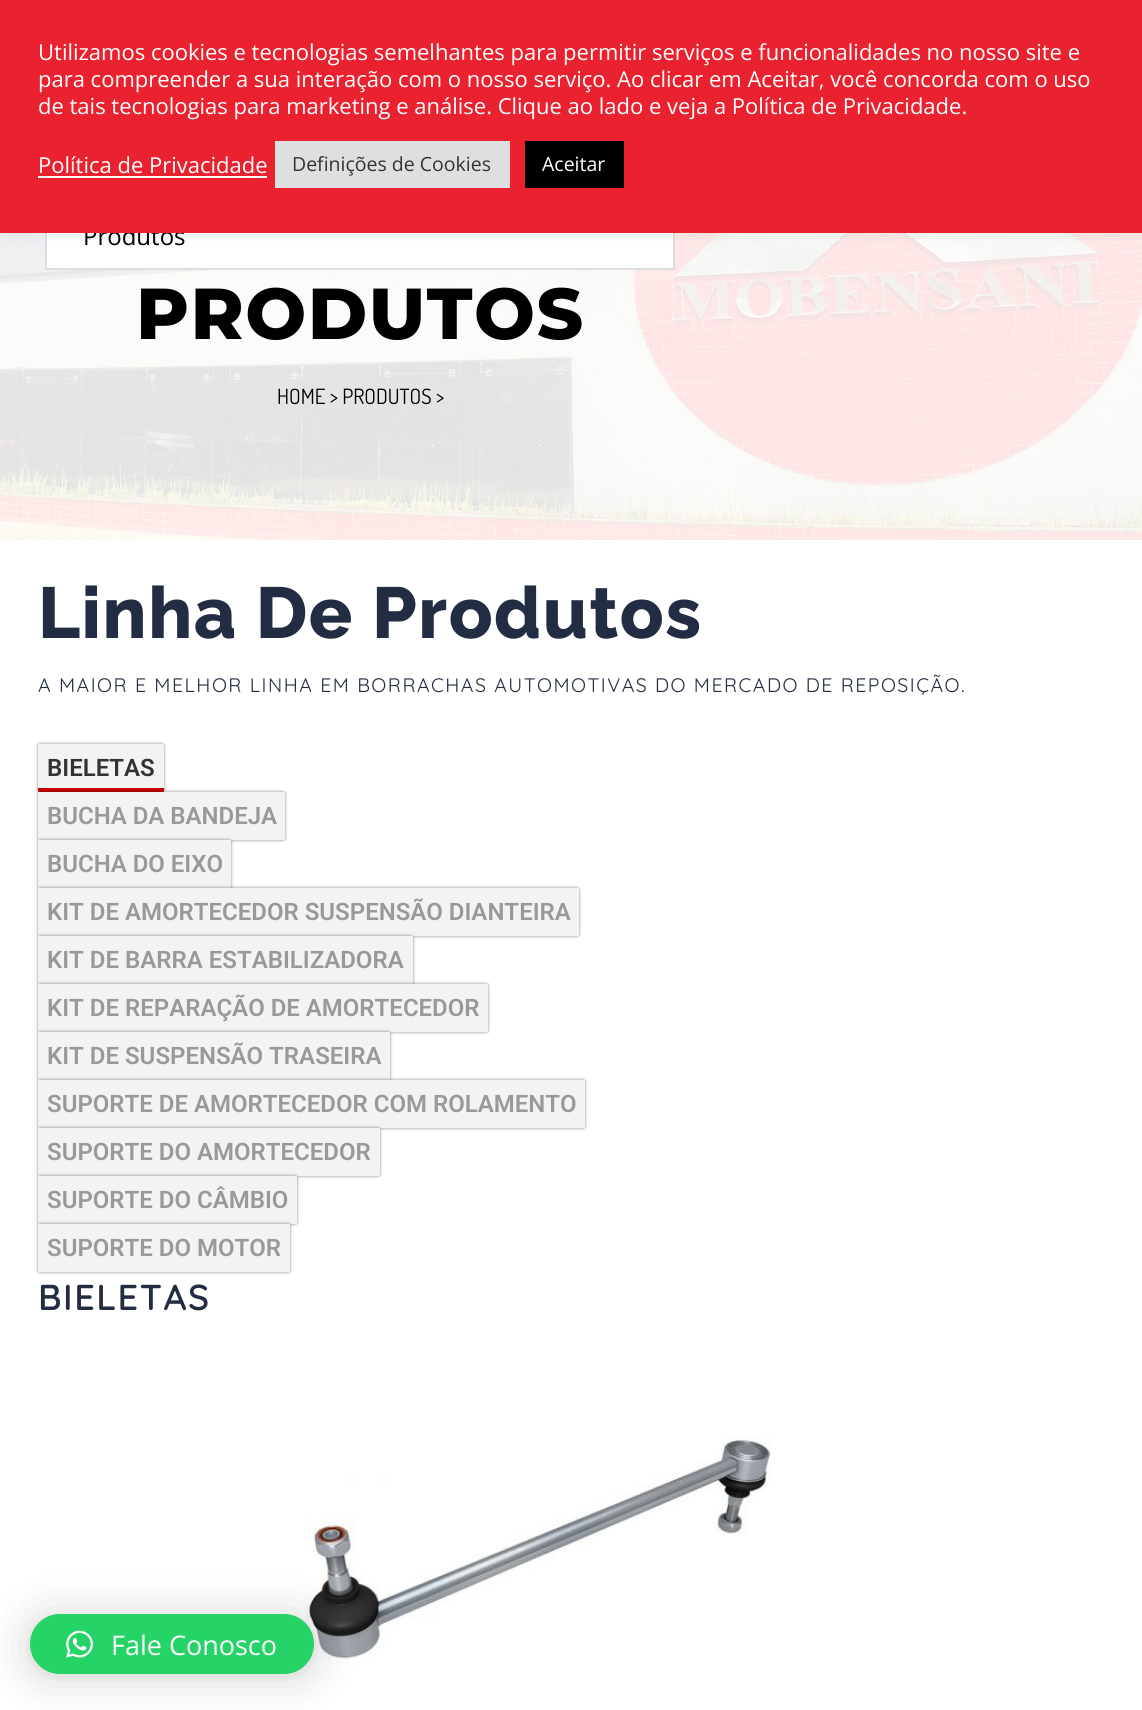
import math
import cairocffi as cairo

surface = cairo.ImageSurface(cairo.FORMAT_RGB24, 1142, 1710)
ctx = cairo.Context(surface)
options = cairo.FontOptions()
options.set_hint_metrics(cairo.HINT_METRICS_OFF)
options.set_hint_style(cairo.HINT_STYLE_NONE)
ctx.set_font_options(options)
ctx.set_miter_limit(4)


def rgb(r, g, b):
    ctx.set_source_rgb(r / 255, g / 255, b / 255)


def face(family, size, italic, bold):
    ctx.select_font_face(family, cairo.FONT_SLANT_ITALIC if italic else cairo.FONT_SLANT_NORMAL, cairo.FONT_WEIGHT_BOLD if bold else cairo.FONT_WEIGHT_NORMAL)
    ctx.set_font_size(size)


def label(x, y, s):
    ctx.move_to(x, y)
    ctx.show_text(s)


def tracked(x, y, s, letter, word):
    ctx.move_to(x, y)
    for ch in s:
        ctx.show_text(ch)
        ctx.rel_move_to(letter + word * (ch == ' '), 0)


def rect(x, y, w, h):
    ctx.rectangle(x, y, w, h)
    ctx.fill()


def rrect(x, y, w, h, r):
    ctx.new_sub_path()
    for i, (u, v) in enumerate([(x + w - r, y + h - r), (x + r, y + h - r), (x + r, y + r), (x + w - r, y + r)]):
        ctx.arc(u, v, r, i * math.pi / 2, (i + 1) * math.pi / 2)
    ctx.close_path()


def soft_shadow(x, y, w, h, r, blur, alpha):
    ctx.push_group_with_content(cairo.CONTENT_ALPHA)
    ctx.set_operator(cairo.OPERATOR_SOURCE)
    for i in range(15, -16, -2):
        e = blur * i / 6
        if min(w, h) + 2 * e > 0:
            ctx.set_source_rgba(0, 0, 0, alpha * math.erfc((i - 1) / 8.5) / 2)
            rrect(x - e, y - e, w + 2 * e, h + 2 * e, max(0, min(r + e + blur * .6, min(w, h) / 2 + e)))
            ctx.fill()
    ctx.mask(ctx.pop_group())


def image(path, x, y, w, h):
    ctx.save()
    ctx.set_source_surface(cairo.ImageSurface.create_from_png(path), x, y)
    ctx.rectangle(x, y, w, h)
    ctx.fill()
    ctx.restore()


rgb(255, 255, 255)
ctx.paint()
image('image0.png', 0, 233, 1142, 307)
rgb(255, 255, 255)
rrect(46, 204, 628, 65, 0.5)
ctx.fill_preserve()
rgb(221, 221, 221)
ctx.stroke()
rgb(172, 171, 171)
soft_shadow(0, -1, 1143, 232, 0, 7.5, 0.3)
face('Open Sans', 24, 0, 0)
rgb(0, 0, 0)
label(83, 245, 'Produtos')
rgb(234, 33, 46)
rect(0, 0, 1142, 233)
face('Open Sans', 22, 0, 0)
rgb(255, 255, 255)
label(38, 60, 'Utilizamos cookies e tecnologias semelhantes para permitir serviços e funcionalidades no nosso site e')
label(38, 87, 'para compreender a sua interação com o nosso serviço. Ao clicar em Aceitar, você concorda com o uso')
label(38, 114, 'de tais tecnologias para marketing e análise. Clique ao lado e veja a Política de Privacidade.')
label(38, 173, 'Política de Privacidade')
rect(38, 176, 229, 2)
rgb(222, 223, 224)
rect(275, 141, 235, 47)
face('Open Sans', 19.5, 0, 0)
rgb(51, 51, 51)
label(292, 171, 'Definições de Cookies')
rgb(0, 0, 0)
rect(525, 141, 99, 47)
rgb(255, 255, 255)
label(542, 171, 'Aceitar')
face('Montserrat ExtraBold', 72, 0, 0)
rgb(0, 0, 0)
tracked(136, 339, 'PRODUTOS', 1.5, 0)
face('Dosis', 21, 0, 0)
label(277, 404, 'HOME > PRODUTOS >')
face('Raleway ExtraBold', 72, 0, 0)
rgb(34, 44, 66)
tracked(38, 638, 'Linha De Produtos', 1.5, 0)
face('Quicksand', 19.5, 0, 0)
tracked(38, 692, 'A MAIOR E MELHOR LINHA EM BORRACHAS AUTOMOTIVAS DO MERCADO DE REPOSIÇÃO.', 1.5, 0)
rgb(13, 13, 13)
soft_shadow(38, 744, 126, 48, 1.5, 1.5, 0.5)
rgb(243, 243, 243)
rrect(38, 744, 126, 48, 1.5)
ctx.fill()
face('Roboto SemiBold', 24, 0, 0)
rgb(51, 51, 51)
label(47, 776, 'BIELETAS')
rgb(200, 0, 0)
ctx.new_path()
ctx.move_to(38, 788)
ctx.line_to(164, 788)
ctx.line_to(164, 790.5)
ctx.curve_to(164, 791.5, 163.5, 792, 162.5, 792)
ctx.line_to(39.5, 792)
ctx.curve_to(38.5, 792, 38, 791.5, 38, 790.5)
ctx.close_path()
ctx.fill()
rgb(13, 13, 13)
soft_shadow(38, 792, 247, 48, 1.5, 1.5, 0.5)
rgb(243, 243, 243)
ctx.new_path()
ctx.move_to(39.5, 792)
ctx.line_to(285, 792)
ctx.line_to(285, 838.5)
ctx.curve_to(285, 839.5, 284.5, 840, 283.5, 840)
ctx.line_to(38, 840)
ctx.line_to(38, 793.5)
ctx.curve_to(38, 792.5, 38.5, 792, 39.5, 792)
ctx.close_path()
ctx.fill()
rgb(153, 153, 153)
label(47, 824, 'BUCHA DA BANDEJA')
rgb(13, 13, 13)
soft_shadow(38, 840, 193, 48, 1.5, 1.5, 0.5)
rgb(243, 243, 243)
ctx.new_path()
ctx.move_to(39.5, 840)
ctx.line_to(231, 840)
ctx.line_to(231, 886.5)
ctx.curve_to(231, 887.5, 230.5, 888, 229.5, 888)
ctx.line_to(38, 888)
ctx.line_to(38, 841.5)
ctx.curve_to(38, 840.5, 38.5, 840, 39.5, 840)
ctx.close_path()
ctx.fill()
rgb(153, 153, 153)
label(47, 872, 'BUCHA DO EIXO')
rgb(13, 13, 13)
soft_shadow(38, 888, 541, 48, 1.5, 1.5, 0.5)
rgb(243, 243, 243)
ctx.new_path()
ctx.move_to(39.5, 888)
ctx.line_to(579, 888)
ctx.line_to(579, 934.5)
ctx.curve_to(579, 935.5, 578.5, 936, 577.5, 936)
ctx.line_to(38, 936)
ctx.line_to(38, 889.5)
ctx.curve_to(38, 888.5, 38.5, 888, 39.5, 888)
ctx.close_path()
ctx.fill()
rgb(153, 153, 153)
label(47, 920, 'KIT DE AMORTECEDOR SUSPENSÃO DIANTEIRA')
rgb(13, 13, 13)
soft_shadow(38, 936, 375, 48, 1.5, 1.5, 0.5)
rgb(243, 243, 243)
ctx.new_path()
ctx.move_to(39.5, 936)
ctx.line_to(413, 936)
ctx.line_to(413, 982.5)
ctx.curve_to(413, 983.5, 412.5, 984, 411.5, 984)
ctx.line_to(38, 984)
ctx.line_to(38, 937.5)
ctx.curve_to(38, 936.5, 38.5, 936, 39.5, 936)
ctx.close_path()
ctx.fill()
rgb(153, 153, 153)
label(47, 968, 'KIT DE BARRA ESTABILIZADORA')
rgb(13, 13, 13)
soft_shadow(38, 984, 450, 48, 1.5, 1.5, 0.5)
rgb(243, 243, 243)
ctx.new_path()
ctx.move_to(39.5, 984)
ctx.line_to(488, 984)
ctx.line_to(488, 1030.5)
ctx.curve_to(488, 1031.5, 487.5, 1032, 486.5, 1032)
ctx.line_to(38, 1032)
ctx.line_to(38, 985.5)
ctx.curve_to(38, 984.5, 38.5, 984, 39.5, 984)
ctx.close_path()
ctx.fill()
rgb(153, 153, 153)
label(47, 1016, 'KIT DE REPARAÇÃO DE AMORTECEDOR')
rgb(13, 13, 13)
soft_shadow(38, 1032, 352, 48, 1.5, 1.5, 0.5)
rgb(243, 243, 243)
ctx.new_path()
ctx.move_to(39.5, 1032)
ctx.line_to(390, 1032)
ctx.line_to(390, 1078.5)
ctx.curve_to(390, 1079.5, 389.5, 1080, 388.5, 1080)
ctx.line_to(38, 1080)
ctx.line_to(38, 1033.5)
ctx.curve_to(38, 1032.5, 38.5, 1032, 39.5, 1032)
ctx.close_path()
ctx.fill()
rgb(153, 153, 153)
label(47, 1064, 'KIT DE SUSPENSÃO TRASEIRA')
rgb(13, 13, 13)
soft_shadow(38, 1080, 547, 48, 1.5, 1.5, 0.5)
rgb(243, 243, 243)
ctx.new_path()
ctx.move_to(39.5, 1080)
ctx.line_to(585, 1080)
ctx.line_to(585, 1126.5)
ctx.curve_to(585, 1127.5, 584.5, 1128, 583.5, 1128)
ctx.line_to(38, 1128)
ctx.line_to(38, 1081.5)
ctx.curve_to(38, 1080.5, 38.5, 1080, 39.5, 1080)
ctx.close_path()
ctx.fill()
rgb(153, 153, 153)
label(47, 1112, 'SUPORTE DE AMORTECEDOR COM ROLAMENTO')
rgb(13, 13, 13)
soft_shadow(38, 1128, 342, 48, 1.5, 1.5, 0.5)
rgb(243, 243, 243)
ctx.new_path()
ctx.move_to(39.5, 1128)
ctx.line_to(380, 1128)
ctx.line_to(380, 1174.5)
ctx.curve_to(380, 1175.5, 379.5, 1176, 378.5, 1176)
ctx.line_to(38, 1176)
ctx.line_to(38, 1129.5)
ctx.curve_to(38, 1128.5, 38.5, 1128, 39.5, 1128)
ctx.close_path()
ctx.fill()
rgb(153, 153, 153)
label(47, 1160, 'SUPORTE DO AMORTECEDOR')
rgb(13, 13, 13)
soft_shadow(38, 1176, 259, 48, 1.5, 1.5, 0.5)
rgb(243, 243, 243)
ctx.new_path()
ctx.move_to(39.5, 1176)
ctx.line_to(297, 1176)
ctx.line_to(297, 1222.5)
ctx.curve_to(297, 1223.5, 296.5, 1224, 295.5, 1224)
ctx.line_to(38, 1224)
ctx.line_to(38, 1177.5)
ctx.curve_to(38, 1176.5, 38.5, 1176, 39.5, 1176)
ctx.close_path()
ctx.fill()
rgb(153, 153, 153)
label(47, 1208, 'SUPORTE DO CÂMBIO')
rgb(13, 13, 13)
soft_shadow(38, 1224, 252, 48, 1.5, 1.5, 0.5)
rgb(243, 243, 243)
ctx.new_path()
ctx.move_to(39.5, 1224)
ctx.line_to(290, 1224)
ctx.line_to(290, 1270.5)
ctx.curve_to(290, 1271.5, 289.5, 1272, 288.5, 1272)
ctx.line_to(38, 1272)
ctx.line_to(38, 1225.5)
ctx.curve_to(38, 1224.5, 38.5, 1224, 39.5, 1224)
ctx.close_path()
ctx.fill()
rgb(153, 153, 153)
label(47, 1256, 'SUPORTE DO MOTOR')
face('Quicksand SemiBold', 36, 0, 0)
rgb(34, 44, 66)
tracked(38, 1310, 'BIELETAS', 1.5, 0)
image('image1.png', 305, 1435, 467, 225)
rgb(0, 0, 0)
soft_shadow(30, 1617, 284, 60, 30, 24, 0.16)
soft_shadow(30, 1616, 284, 60, 30, 4.5, 0.06)
rgb(37, 211, 102)
rrect(30, 1614, 284, 60, 30)
ctx.fill()
image('image2.png', 66, 1630, 27, 28)
face('Open Sans', 27, 0, 0)
rgb(255, 255, 255)
label(111, 1655, 'Fale Conosco')
surface.write_to_png('render.png')
